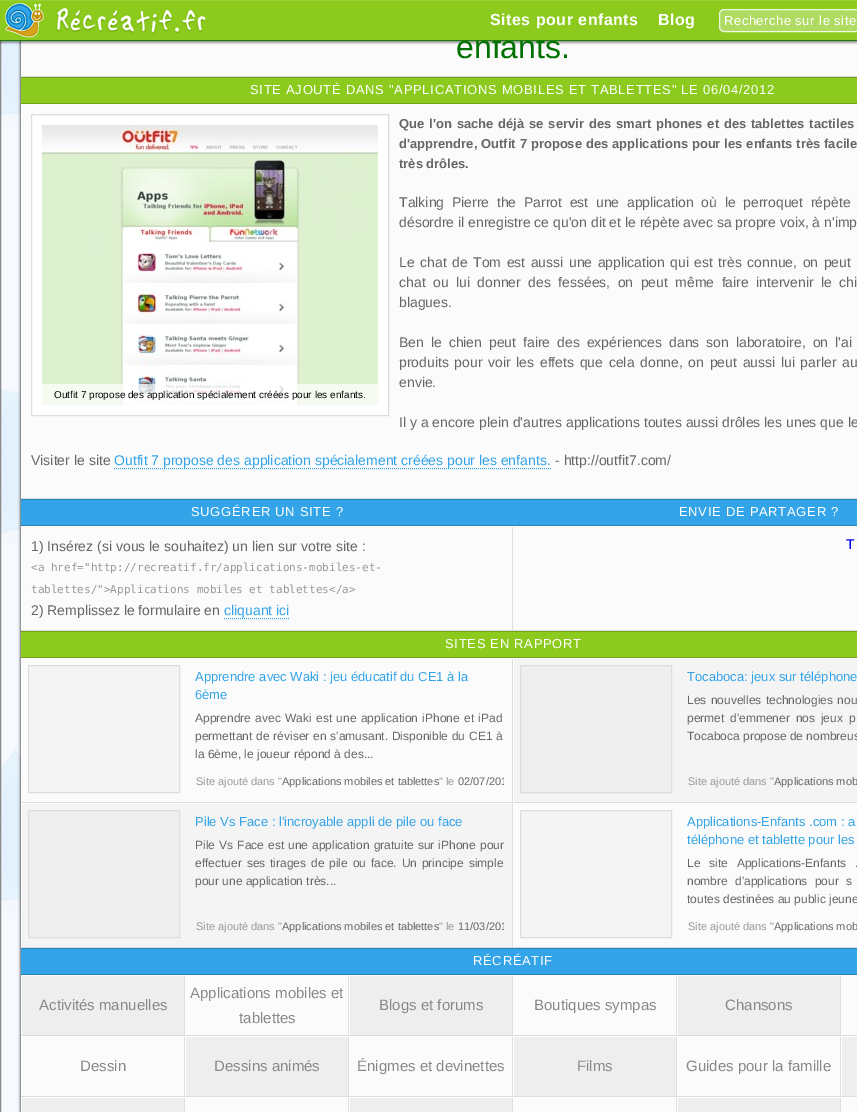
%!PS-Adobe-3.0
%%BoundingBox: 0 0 857 1112
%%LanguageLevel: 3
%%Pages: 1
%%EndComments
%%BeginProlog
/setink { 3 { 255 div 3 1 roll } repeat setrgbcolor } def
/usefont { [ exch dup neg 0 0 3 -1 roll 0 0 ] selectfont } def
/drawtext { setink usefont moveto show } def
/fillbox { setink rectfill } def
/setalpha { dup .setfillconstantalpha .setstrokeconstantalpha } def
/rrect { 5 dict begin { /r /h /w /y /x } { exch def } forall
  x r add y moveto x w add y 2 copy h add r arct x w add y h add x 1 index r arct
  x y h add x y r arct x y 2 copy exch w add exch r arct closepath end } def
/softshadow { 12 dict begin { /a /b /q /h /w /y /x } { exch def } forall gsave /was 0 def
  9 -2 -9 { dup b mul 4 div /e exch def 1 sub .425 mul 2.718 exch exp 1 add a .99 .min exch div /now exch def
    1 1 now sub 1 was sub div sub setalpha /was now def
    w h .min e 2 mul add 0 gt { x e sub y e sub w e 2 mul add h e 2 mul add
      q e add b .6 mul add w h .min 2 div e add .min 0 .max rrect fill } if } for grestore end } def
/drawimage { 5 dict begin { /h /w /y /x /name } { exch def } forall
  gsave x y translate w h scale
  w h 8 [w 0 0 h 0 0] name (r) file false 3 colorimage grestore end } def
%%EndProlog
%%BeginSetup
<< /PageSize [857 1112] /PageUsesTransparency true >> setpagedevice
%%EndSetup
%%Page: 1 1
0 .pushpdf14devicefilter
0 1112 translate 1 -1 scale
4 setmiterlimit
0 0 857 1112 255 255 255 fillbox
(assets/img1.rgb) 1 41 20 1071 drawimage
136 136 136 setink
0.5 -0.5 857 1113 rectstroke
0 0 0 setink
21 -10 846 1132 5 1.5 1 softshadow
21 41 836 35 251 251 251 fillbox
0 0 0 setink
0 2 857 41 0 1 0.4 softshadow
(enfants.) 456 58 /LiberationSans-Regular 32 0 113 0 drawtext
0 1 857 39 140 203 30 fillbox
0 0 857 1 152 208 53 fillbox
0 40 857 1 27 123 11 fillbox
(assets/img2.rgb) 4 2 203 37 drawimage
/LiberationSans-Bold 16 usefont
255 255 255 setink
490 25 moveto 0.5 0 (Sites pour enfants) ashow
658 25 moveto 0.5 0 (Blog) ashow
175 219 98 setink
719 9 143 23 5 rrect fill
0.8 setalpha
255 255 255 setink
719.5 9.5 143 22 4.5 rrect stroke
/LiberationSans-Regular 13 usefont
1 setalpha
724 25 moveto 0.5 0 (Recherche sur le site) ashow
21 76 836 1 221 221 221 fillbox
21 104 836 394 251 251 251 fillbox
21 498 836 1 221 221 221 fillbox
21 78 836 25 140 203 30 fillbox
21 77 836 1 112 162 24 fillbox
21 103 836 1 112 162 24 fillbox
255 255 255 setink
250 94 moveto 0.7 0 (SITE AJOUTÉ DANS "APPLICATIONS MOBILES ET TABLETTES" LE 06/04/2012) ashow
/LiberationSans-Bold 13 usefont
102 102 102 setink
399 128 moveto 1.25 0 32 (Que l'on sache déjà se servir des smart phones et des tablettes tactiles) widthshow
399 148 moveto 0.25 0 32 (d'apprendre, Outfit 7 propose des applications pour les enfants très facile) widthshow
(très drôles.) 399 168 /LiberationSans-Bold 13 102 102 102 drawtext
255 255 255 setink
31.5 114.5 moveto 388.5 114.5 lineto 388.5 415.5 lineto 31.5 415.5 lineto closepath gsave fill grestore
221 221 221 setink
stroke
(assets/img3.rgb) 42 125 336 280 drawimage
0.7 setalpha
42 384 336 21 255 255 255 fillbox
1 setalpha
(Outfit 7 propose des application spécialement créées pour les enfants.) 54 398 /LiberationSans-Regular 10 0 0 0 drawtext
/LiberationSans-Regular 14 usefont
102 102 102 setink
399 207 moveto 3.75 0 32 (Talking Pierre the Parrot est une application où le perroquet répète) widthshow
(désordre il enregistre ce qu'on dit et le répète avec sa propre voix, à n'imp) 399 227 /LiberationSans-Regular 14 102 102 102 drawtext
399 267 moveto 1.6 0 32 (Le chat de Tom est aussi une application qui est très connue, on peut) widthshow
399 287 moveto 3.5 0 32 (chat ou lui donner des fessées, on peut même faire intervenir le chi) widthshow
(blagues.) 399 307 /LiberationSans-Regular 14 102 102 102 drawtext
399 347 moveto 3 0 32 (Ben le chien peut faire des expériences dans son laboratoire, on l'ai) widthshow
399 367 moveto 1.75 0 32 (produits pour voir les effets que cela donne, on peut aussi lui parler au) widthshow
(envie.) 399 387 /LiberationSans-Regular 14 102 102 102 drawtext
(Il y a encore plein d'autres applications toutes aussi drôles les unes que le) 399 427 /LiberationSans-Regular 14 102 102 102 drawtext
(Visiter le site) 31 465 /LiberationSans-Regular 14 102 102 102 drawtext
(Outfit 7 propose des application spécialement créées pour les enfants.) 114 465 /LiberationSans-Regular 14 51 164 231 drawtext
[1 1] 0 setdash
114 468.5 moveto 551 468.5 lineto stroke
(- http://outfit7.com/) 555 465 /LiberationSans-Regular 14 102 102 102 drawtext
22 527 835 103 251 251 251 fillbox
21 630 836 1 221 221 221 fillbox
21 500 836 25 51 164 231 fillbox
21 499 836 1 41 131 185 fillbox
21 525 836 1 41 131 185 fillbox
/LiberationSans-Regular 13 usefont
255 255 255 setink
191 516 moveto 0.7 0 (SUGGÉRER UN SITE ?) ashow
679 516 moveto 0.7 0 (ENVIE DE PARTAGER ?) ashow
21 526 1 104 255 255 255 fillbox
512 526 1 104 221 221 221 fillbox
21 526 492 1 255 255 255 fillbox
(1\) Insérez \(si vous le souhaitez\) un lien sur votre site :) 31 551 /LiberationSans-Regular 14 102 102 102 drawtext
(<a href="http://recreatif.fr/applications-mobiles-et-) 31 571 /DejaVuSansMono-Regular 11 153 153 153 drawtext
(tablettes/">Applications mobiles et tablettes</a>) 31 593 /DejaVuSansMono-Regular 11 153 153 153 drawtext
(2\) Remplissez le formulaire en) 31 615 /LiberationSans-Regular 14 102 102 102 drawtext
(cliquant ici) 224 615 /LiberationSans-Regular 14 51 164 231 drawtext
224 618.5 moveto 289 618.5 lineto stroke
513 526 1 80 255 255 255 fillbox
513 526 344 1 255 255 255 fillbox
(T) 846 549 /LiberationSans-Regular 14 0 0 238 drawtext
22 659 835 288 251 251 251 fillbox
21 947 836 1 221 221 221 fillbox
21 632 836 25 140 203 30 fillbox
21 631 836 1 112 162 24 fillbox
21 657 836 1 112 162 24 fillbox
/LiberationSans-Regular 13 usefont
255 255 255 setink
445 648 moveto 0.7 0 (SITES EN RAPPORT) ashow
21 658 1 144 255 255 255 fillbox
512 658 1 144 221 221 221 fillbox
21 658 492 1 255 255 255 fillbox
21 802 836 1 221 221 221 fillbox
244 244 244 setink
28.5 665.5 moveto 179.5 665.5 lineto 179.5 792.5 lineto 28.5 792.5 lineto closepath gsave fill grestore
221 221 221 setink
[] 0 setdash
stroke
(Apprendre avec Waki : jeu éducatif du CE1 à la) 195 681 /LiberationSans-Regular 13 51 164 231 drawtext
(6ème) 195 699 /LiberationSans-Regular 13 51 164 231 drawtext
/LiberationSans-Regular 12 usefont
102 102 102 setink
195 722 moveto 1 0 32 (Apprendre avec Waki est une application iPhone et iPad) widthshow
195 740 moveto 0.5 0 32 (permettant de réviser en s'amusant. Disponible du CE1 à) widthshow
(la 6ème, le joueur répond à des...) 195 758 /LiberationSans-Regular 12 102 102 102 drawtext
(Site ajouté dans ") 196 785 /LiberationSans-Regular 11 153 153 153 drawtext
(Applications mobiles et tablettes) 282 785 /LiberationSans-Regular 11 102 102 102 drawtext
(" le) 439 785 /LiberationSans-Regular 11 153 153 153 drawtext
gsave
196 770 308 22 rectclip
(02/07/201) 458 785 /LiberationSans-Regular 11 102 102 102 drawtext
grestore
514 659 343 143 244 244 244 fillbox
513 658 1 144 255 255 255 fillbox
513 658 344 1 255 255 255 fillbox
238 238 238 setink
520.5 665.5 moveto 671.5 665.5 lineto 671.5 792.5 lineto 520.5 792.5 lineto closepath gsave fill grestore
221 221 221 setink
stroke
(Tocaboca: jeux sur téléphone) 687 681 /LiberationSans-Regular 13 51 164 231 drawtext
/LiberationSans-Regular 12 usefont
102 102 102 setink
687 704 moveto 1 0 32 (Les nouvelles technologies nou) widthshow
687 722 moveto 2.5 0 32 (permet d'emmener nos jeux p) widthshow
(Tocaboca propose de nombreus) 687 740 /LiberationSans-Regular 12 102 102 102 drawtext
(Site ajouté dans ") 688 785 /LiberationSans-Regular 11 153 153 153 drawtext
(Applications mob) 774 785 /LiberationSans-Regular 11 102 102 102 drawtext
22 804 490 143 244 244 244 fillbox
21 803 1 144 255 255 255 fillbox
512 803 1 144 221 221 221 fillbox
21 803 492 1 255 255 255 fillbox
238 238 238 setink
28.5 810.5 moveto 179.5 810.5 lineto 179.5 937.5 lineto 28.5 937.5 lineto closepath gsave fill grestore
221 221 221 setink
stroke
(Pile Vs Face : l'incroyable appli de pile ou face) 195 826 /LiberationSans-Regular 13 51 164 231 drawtext
/LiberationSans-Regular 12 usefont
102 102 102 setink
195 849 moveto 0.75 0 32 (Pile Vs Face est une application gratuite sur iPhone pour) widthshow
195 867 moveto 1.5 0 32 (effectuer ses tirages de pile ou face. Un principe simple) widthshow
(pour une application très...) 195 885 /LiberationSans-Regular 12 102 102 102 drawtext
(Site ajouté dans ") 196 930 /LiberationSans-Regular 11 153 153 153 drawtext
(Applications mobiles et tablettes) 282 930 /LiberationSans-Regular 11 102 102 102 drawtext
(" le) 439 930 /LiberationSans-Regular 11 153 153 153 drawtext
gsave
196 915 308 22 rectclip
(11/03/201) 458 930 /LiberationSans-Regular 11 102 102 102 drawtext
grestore
513 803 1 144 255 255 255 fillbox
513 803 344 1 255 255 255 fillbox
244 244 244 setink
520.5 810.5 moveto 671.5 810.5 lineto 671.5 937.5 lineto 520.5 937.5 lineto closepath gsave fill grestore
221 221 221 setink
stroke
(Applications-Enfants .com : a) 687 826 /LiberationSans-Regular 13 51 164 231 drawtext
(téléphone et tablette pour les) 687 844 /LiberationSans-Regular 13 51 164 231 drawtext
/LiberationSans-Regular 12 usefont
102 102 102 setink
687 867 moveto 5.5 0 32 (Le site Applications-Enfants .) widthshow
687 885 moveto 4 0 32 (nombre d'applications pour s) widthshow
(toutes destinées au public jeune) 687 903 /LiberationSans-Regular 12 102 102 102 drawtext
(Site ajouté dans ") 688 930 /LiberationSans-Regular 11 153 153 153 drawtext
(Applications mob) 774 930 /LiberationSans-Regular 11 102 102 102 drawtext
22 976 835 136 251 251 251 fillbox
21 949 836 25 51 164 231 fillbox
21 948 836 1 41 131 185 fillbox
21 974 836 1 41 131 185 fillbox
/LiberationSans-Regular 13 usefont
255 255 255 setink
473 965 moveto 0.7 0 (RÉCRÉATIF) ashow
22 976 162 59 238 238 238 fillbox
21 975 1 60 255 255 255 fillbox
184 975 1 60 221 221 221 fillbox
21 975 164 1 255 255 255 fillbox
21 1035 836 1 221 221 221 fillbox
(Activités manuelles) 39 1010 /LiberationSans-Regular 15 136 136 136 drawtext
185 975 1 60 255 255 255 fillbox
348 975 1 60 221 221 221 fillbox
185 975 164 1 255 255 255 fillbox
(Applications mobiles et) 190 998 /LiberationSans-Regular 15 136 136 136 drawtext
(tablettes) 239 1023 /LiberationSans-Regular 15 136 136 136 drawtext
350 976 162 59 238 238 238 fillbox
349 975 1 60 255 255 255 fillbox
512 975 1 60 221 221 221 fillbox
349 975 164 1 255 255 255 fillbox
(Blogs et forums) 379 1010 /LiberationSans-Regular 15 136 136 136 drawtext
513 975 1 60 255 255 255 fillbox
676 975 1 60 221 221 221 fillbox
513 975 164 1 255 255 255 fillbox
(Boutiques sympas) 534 1010 /LiberationSans-Regular 15 136 136 136 drawtext
678 976 162 59 238 238 238 fillbox
677 975 1 60 255 255 255 fillbox
840 975 1 60 221 221 221 fillbox
677 975 164 1 255 255 255 fillbox
(Chansons) 725 1010 /LiberationSans-Regular 15 136 136 136 drawtext
841 975 1 60 255 255 255 fillbox
841 975 16 1 255 255 255 fillbox
21 1036 1 60 255 255 255 fillbox
184 1036 1 60 221 221 221 fillbox
21 1036 164 1 255 255 255 fillbox
21 1096 836 1 221 221 221 fillbox
(Dessin) 80 1071 /LiberationSans-Regular 15 136 136 136 drawtext
186 1037 162 59 238 238 238 fillbox
185 1036 1 60 255 255 255 fillbox
348 1036 1 60 221 221 221 fillbox
185 1036 164 1 255 255 255 fillbox
(Dessins animés) 214 1071 /LiberationSans-Regular 15 136 136 136 drawtext
349 1036 1 60 255 255 255 fillbox
512 1036 1 60 221 221 221 fillbox
349 1036 164 1 255 255 255 fillbox
(Énigmes et devinettes) 357 1071 /LiberationSans-Regular 15 136 136 136 drawtext
514 1037 162 59 238 238 238 fillbox
513 1036 1 60 255 255 255 fillbox
676 1036 1 60 221 221 221 fillbox
513 1036 164 1 255 255 255 fillbox
(Films) 577 1071 /LiberationSans-Regular 15 136 136 136 drawtext
677 1036 1 60 255 255 255 fillbox
840 1036 1 60 221 221 221 fillbox
677 1036 164 1 255 255 255 fillbox
(Guides pour la famille) 686 1071 /LiberationSans-Regular 15 136 136 136 drawtext
842 1037 15 59 238 238 238 fillbox
841 1036 1 60 255 255 255 fillbox
841 1036 16 1 255 255 255 fillbox
22 1098 162 14 238 238 238 fillbox
21 1097 1 15 255 255 255 fillbox
184 1097 1 15 221 221 221 fillbox
21 1097 164 1 255 255 255 fillbox
185 1097 1 15 255 255 255 fillbox
348 1097 1 15 221 221 221 fillbox
185 1097 164 1 255 255 255 fillbox
350 1098 162 14 238 238 238 fillbox
349 1097 1 15 255 255 255 fillbox
512 1097 1 15 221 221 221 fillbox
349 1097 164 1 255 255 255 fillbox
513 1097 1 15 255 255 255 fillbox
676 1097 1 15 221 221 221 fillbox
513 1097 164 1 255 255 255 fillbox
678 1098 162 14 238 238 238 fillbox
677 1097 1 15 255 255 255 fillbox
840 1097 1 15 221 221 221 fillbox
677 1097 164 1 255 255 255 fillbox
841 1097 1 15 255 255 255 fillbox
841 1097 16 1 255 255 255 fillbox
.poppdf14devicefilter showpage
%%EOF
